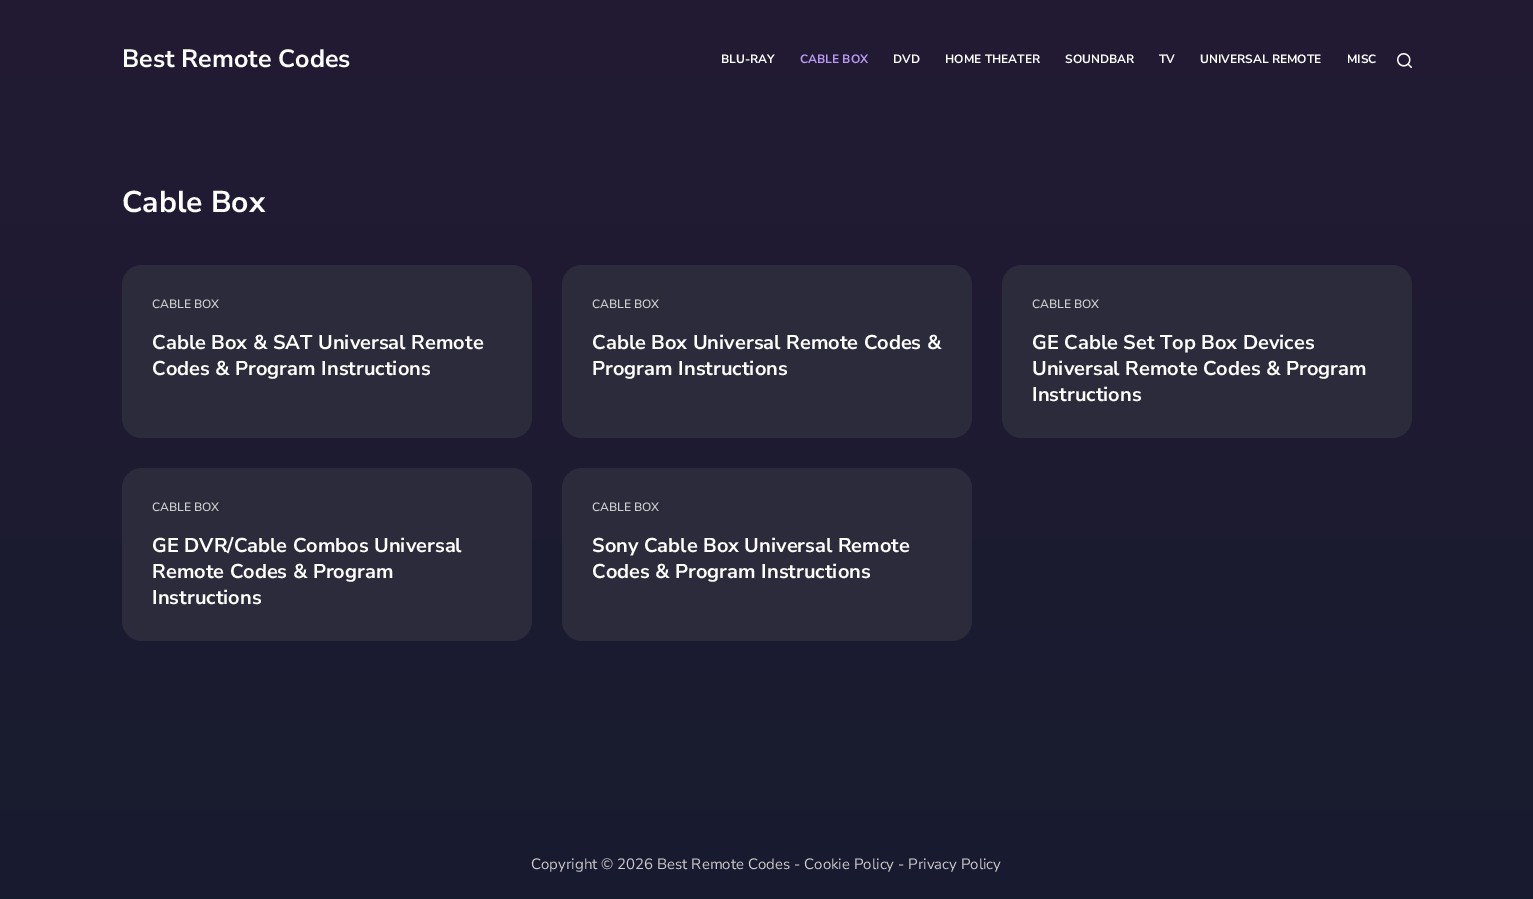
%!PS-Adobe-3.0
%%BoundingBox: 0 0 1533 899
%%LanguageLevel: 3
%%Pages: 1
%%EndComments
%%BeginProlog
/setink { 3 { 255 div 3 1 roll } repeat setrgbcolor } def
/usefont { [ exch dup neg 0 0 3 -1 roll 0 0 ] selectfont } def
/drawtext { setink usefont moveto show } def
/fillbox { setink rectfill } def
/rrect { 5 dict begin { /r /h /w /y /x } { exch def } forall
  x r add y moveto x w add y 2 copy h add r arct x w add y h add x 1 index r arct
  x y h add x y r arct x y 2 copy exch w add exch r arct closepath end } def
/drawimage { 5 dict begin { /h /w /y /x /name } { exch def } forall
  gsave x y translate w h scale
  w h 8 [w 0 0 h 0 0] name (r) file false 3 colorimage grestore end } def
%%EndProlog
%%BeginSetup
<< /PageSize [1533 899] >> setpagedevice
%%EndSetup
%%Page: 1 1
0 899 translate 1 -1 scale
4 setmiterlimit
0 0 1533 899 255 255 255 fillbox
gsave 0 0 moveto 1533 0 lineto 1533 899 lineto 0 899 lineto closepath clip newpath
<< /ShadingType 2 /ColorSpace /DeviceRGB /Coords [767 0 767 899] /Extend [true true] /Function << /FunctionType 2 /Domain [0 1] /C0 [0.137 0.102 0.204] /C1 [0.094 0.11 0.184] /N 1 >> >> shfill grestore
(Best Remote Codes) 122 67 /NunitoSans-Bold 25 255 255 255 drawtext
(BLU-RAY) 721 63 /NunitoSans-Bold 12 255 255 255 drawtext
(CABLE BOX) 800 63 /NunitoSans-Bold 12 184 152 240 drawtext
(DVD) 893 63 /NunitoSans-Bold 12 255 255 255 drawtext
(HOME THEATER) 945 63 /NunitoSans-Bold 12 255 255 255 drawtext
(SOUNDBAR) 1065 63 /NunitoSans-Bold 12 255 255 255 drawtext
(TV) 1159 63 /NunitoSans-Bold 12 255 255 255 drawtext
(UNIVERSAL REMOTE) 1200 63 /NunitoSans-Bold 12 255 255 255 drawtext
(MISC) 1347 63 /NunitoSans-Bold 12 255 255 255 drawtext
(assets/img1.rgb) 1397 53 15 15 drawimage
(Cable Box) 122 212 /NunitoSans-Bold 30 255 255 255 drawtext
44 43 60 setink
122 265 410 173 20 rrect fill
(CABLE BOX) 152 308 /NunitoSans-SemiBold 12 204 204 204 drawtext
(Cable Box & SAT Universal Remote) 152 349 /NunitoSans-Bold 20 255 255 255 drawtext
(Codes & Program Instructions) 152 375 /NunitoSans-Bold 20 255 255 255 drawtext
44 43 60 setink
562 265 410 173 20 rrect fill
(CABLE BOX) 592 308 /NunitoSans-SemiBold 12 204 204 204 drawtext
(Cable Box Universal Remote Codes &) 592 349 /NunitoSans-Bold 20 255 255 255 drawtext
(Program Instructions) 592 375 /NunitoSans-Bold 20 255 255 255 drawtext
44 43 60 setink
1002 265 410 173 20 rrect fill
(CABLE BOX) 1032 308 /NunitoSans-SemiBold 12 204 204 204 drawtext
(GE Cable Set Top Box Devices) 1032 349 /NunitoSans-Bold 20 255 255 255 drawtext
(Universal Remote Codes & Program) 1032 375 /NunitoSans-Bold 20 255 255 255 drawtext
(Instructions) 1032 401 /NunitoSans-Bold 20 255 255 255 drawtext
44 43 60 setink
122 468 410 173 20 rrect fill
(CABLE BOX) 152 511 /NunitoSans-SemiBold 12 204 204 204 drawtext
(GE DVR/Cable Combos Universal) 152 552 /NunitoSans-Bold 20 255 255 255 drawtext
(Remote Codes & Program) 152 578 /NunitoSans-Bold 20 255 255 255 drawtext
(Instructions) 152 604 /NunitoSans-Bold 20 255 255 255 drawtext
44 43 60 setink
562 468 410 173 20 rrect fill
(CABLE BOX) 592 511 /NunitoSans-SemiBold 12 204 204 204 drawtext
(Sony Cable Box Universal Remote) 592 552 /NunitoSans-Bold 20 255 255 255 drawtext
(Codes & Program Instructions) 592 578 /NunitoSans-Bold 20 255 255 255 drawtext
(Copyright © 2026 Best Remote Codes - Cookie Policy - Privacy Policy) 531 869 /NunitoSans-Regular 15 204 204 204 drawtext
showpage
%%EOF
